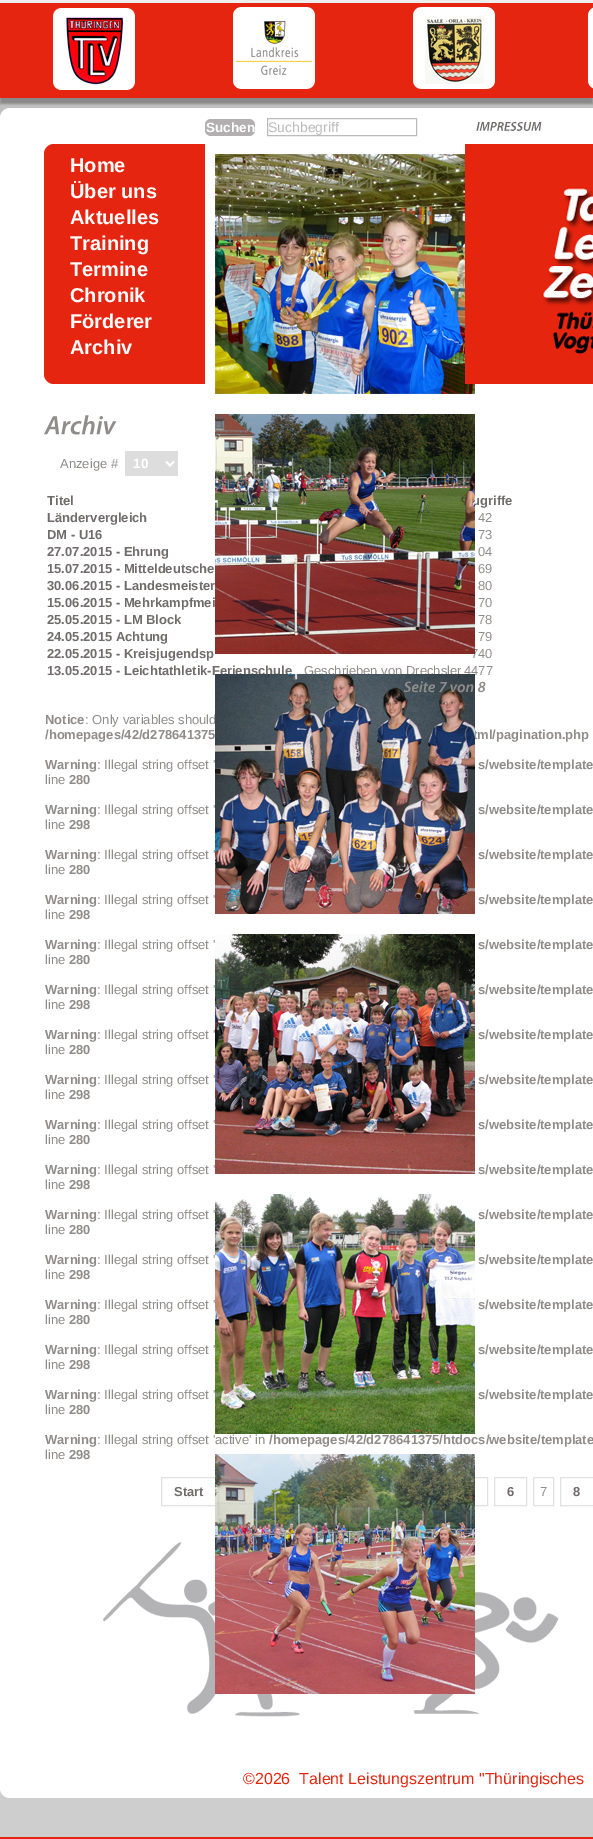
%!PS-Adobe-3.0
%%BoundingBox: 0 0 593 1839
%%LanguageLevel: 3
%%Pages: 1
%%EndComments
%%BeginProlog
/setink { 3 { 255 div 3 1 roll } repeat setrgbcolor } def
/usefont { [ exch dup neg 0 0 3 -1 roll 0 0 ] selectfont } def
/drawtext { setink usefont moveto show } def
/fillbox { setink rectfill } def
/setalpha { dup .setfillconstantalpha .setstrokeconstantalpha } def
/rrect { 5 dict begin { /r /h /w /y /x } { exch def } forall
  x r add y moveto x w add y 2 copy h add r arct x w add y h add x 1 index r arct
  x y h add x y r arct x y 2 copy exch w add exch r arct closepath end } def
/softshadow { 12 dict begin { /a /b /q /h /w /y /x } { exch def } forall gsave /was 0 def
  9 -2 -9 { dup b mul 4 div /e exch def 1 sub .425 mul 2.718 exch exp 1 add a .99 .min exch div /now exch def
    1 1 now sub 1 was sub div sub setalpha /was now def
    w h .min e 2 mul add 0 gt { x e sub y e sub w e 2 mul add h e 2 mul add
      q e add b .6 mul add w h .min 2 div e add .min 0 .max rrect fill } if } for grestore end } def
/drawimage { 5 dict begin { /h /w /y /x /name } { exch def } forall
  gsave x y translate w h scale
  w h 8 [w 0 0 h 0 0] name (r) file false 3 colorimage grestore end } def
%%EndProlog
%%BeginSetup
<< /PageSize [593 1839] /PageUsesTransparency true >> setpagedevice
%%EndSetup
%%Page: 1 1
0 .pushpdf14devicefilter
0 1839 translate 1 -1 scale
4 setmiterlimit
0 0 593 1839 238 238 238 fillbox
0 98 593 20 192 192 192 fillbox
136 136 136 setink
0 9 593 95 0 1 1 softshadow
0 3 593 95 229 37 15 fillbox
(assets/img1.rgb) 53 7 540 83 drawimage
255 255 255 setink
0 108 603 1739 10 rrect fill
179 174 175 setink
205 119 50 17 6 rrect fill
(Suchen) 206 132 /LiberationSans-Bold 13.5 255 255 255 drawtext
187 187 187 setink
267.5 118.5 149 17 rectstroke
(Suchbegriff) 268 132 /LiberationSans-Regular 14 187 187 187 drawtext
(assets/img2.rgb) 476 122 66 9 drawimage
229 37 15 setink
54 144 moveto 205 144 lineto 205 384 lineto 54 384 lineto 48.5 384 44 379.5 44 374 curveto 44 154 lineto 44 148.5 48.5 144 54 144 curveto closepath fill
(Home) 70 172 /LiberationSans-Bold 20 255 255 255 drawtext
(Über uns) 70 198 /LiberationSans-Bold 20 255 255 255 drawtext
(Aktuelles) 70 224 /LiberationSans-Bold 20 255 255 255 drawtext
(Training) 70 250 /LiberationSans-Bold 20 255 255 255 drawtext
(Termine) 70 276 /LiberationSans-Bold 20 255 255 255 drawtext
(Chronik) 70 302 /LiberationSans-Bold 20 255 255 255 drawtext
(Förderer) 70 328 /LiberationSans-Bold 20 255 255 255 drawtext
(Archiv) 70 354 /LiberationSans-Bold 20 255 255 255 drawtext
(assets/img3.rgb) 215 154 260 240 drawimage
(ugriffe) 472 505 /LiberationSans-Bold 13 112 108 107 drawtext
(30.06.2015 - Landesmeister) 47 590 /LiberationSans-Bold 13 112 108 107 drawtext
(740) 471 658 /LiberationSans-Regular 13 144 140 138 drawtext
(assets/img4.rgb) 215 414 260 240 drawimage
(13.05.2015 - Leichtathletik-Ferienschule) 47 675 /LiberationSans-Bold 13 112 108 107 drawtext
(Geschrieben von Drechsler) 304 675 /LiberationSans-Regular 13 144 140 138 drawtext
(4477) 464 675 /LiberationSans-Regular 13 144 140 138 drawtext
(: Only variables should) 85 724 /LiberationSans-Regular 13 144 140 138 drawtext
(/homepages/42/d278641375) 45 739 /LiberationSans-Bold 13 144 140 138 drawtext
(tml/pagination.php) 473 739 /LiberationSans-Bold 13 144 140 138 drawtext
(assets/img5.rgb) 215 674 260 240 drawimage
(assets/img6.rgb) 215 934 260 240 drawimage
(assets/img7.rgb) 215 1194 260 240 drawimage
225 225 225 setink
161.5 1477.5 54 28 rectstroke
455.5 1477.5 32 28 rectstroke
(assets/img15.rgb) 103 1542 456 175 drawimage
(assets/img8.rgb) 215 1454 260 240 drawimage
(assets/img9.rgb) 465 144 128 240 drawimage
(assets/img10.rgb) 44 415 73 20 drawimage
(Anzeige #) 60 468 /LiberationSans-Regular 13 144 140 138 drawtext
125 451 53 25 221 221 221 fillbox
255 255 255 setink
2 setlinewidth
166 461.5 moveto 170 465.5 lineto 174 461.5 lineto stroke
(10) 133 468 /LiberationSans-Bold 13.5 255 255 255 drawtext
(Titel) 47 505 /LiberationSans-Bold 13 112 108 107 drawtext
(Ländervergleich) 47 522 /LiberationSans-Bold 13 112 108 107 drawtext
(42) 478 522 /LiberationSans-Regular 13 144 140 138 drawtext
(DM - U16) 47 539 /LiberationSans-Bold 13 112 108 107 drawtext
(73) 478 539 /LiberationSans-Regular 13 144 140 138 drawtext
(27.07.2015 - Ehrung) 47 556 /LiberationSans-Bold 13 112 108 107 drawtext
(04) 478 556 /LiberationSans-Regular 13 144 140 138 drawtext
(15.07.2015 - Mitteldeutsche) 47 573 /LiberationSans-Bold 13 112 108 107 drawtext
(69) 478 573 /LiberationSans-Regular 13 144 140 138 drawtext
(80) 478 590 /LiberationSans-Regular 13 144 140 138 drawtext
(15.06.2015 - Mehrkampfmei) 47 607 /LiberationSans-Bold 13 112 108 107 drawtext
(70) 478 607 /LiberationSans-Regular 13 144 140 138 drawtext
(25.05.2015 - LM Block) 47 624 /LiberationSans-Bold 13 112 108 107 drawtext
(78) 478 624 /LiberationSans-Regular 13 144 140 138 drawtext
(24.05.2015 Achtung) 47 641 /LiberationSans-Bold 13 112 108 107 drawtext
(79) 478 641 /LiberationSans-Regular 13 144 140 138 drawtext
(22.05.2015 - Kreisjugendsp) 47 658 /LiberationSans-Bold 13 112 108 107 drawtext
(assets/img11.rgb) 403 681 32 12 drawimage
(assets/img12.rgb) 439 682 8 10 drawimage
(assets/img13.rgb) 450 684 24 9 drawimage
(assets/img14.rgb) 477 681 9 12 drawimage
(Notice) 45 724 /LiberationSans-Bold 13 144 140 138 drawtext
(Warning) 45 769 /LiberationSans-Bold 13 144 140 138 drawtext
(: Illegal string offset ') 97 769 /LiberationSans-Regular 13 144 140 138 drawtext
(s/website/template) 478 769 /LiberationSans-Bold 13 144 140 138 drawtext
(line) 45 784 /LiberationSans-Regular 13 144 140 138 drawtext
(280) 69 784 /LiberationSans-Bold 13 144 140 138 drawtext
(Warning) 45 814 /LiberationSans-Bold 13 144 140 138 drawtext
(: Illegal string offset ') 97 814 /LiberationSans-Regular 13 144 140 138 drawtext
(s/website/template) 478 814 /LiberationSans-Bold 13 144 140 138 drawtext
(line) 45 829 /LiberationSans-Regular 13 144 140 138 drawtext
(298) 69 829 /LiberationSans-Bold 13 144 140 138 drawtext
(Warning) 45 859 /LiberationSans-Bold 13 144 140 138 drawtext
(: Illegal string offset ') 97 859 /LiberationSans-Regular 13 144 140 138 drawtext
(s/website/template) 478 859 /LiberationSans-Bold 13 144 140 138 drawtext
(line) 45 874 /LiberationSans-Regular 13 144 140 138 drawtext
(280) 69 874 /LiberationSans-Bold 13 144 140 138 drawtext
(Warning) 45 904 /LiberationSans-Bold 13 144 140 138 drawtext
(: Illegal string offset ') 97 904 /LiberationSans-Regular 13 144 140 138 drawtext
(s/website/template) 478 904 /LiberationSans-Bold 13 144 140 138 drawtext
(line) 45 919 /LiberationSans-Regular 13 144 140 138 drawtext
(298) 69 919 /LiberationSans-Bold 13 144 140 138 drawtext
(Warning) 45 949 /LiberationSans-Bold 13 144 140 138 drawtext
(: Illegal string offset ') 97 949 /LiberationSans-Regular 13 144 140 138 drawtext
(s/website/template) 478 949 /LiberationSans-Bold 13 144 140 138 drawtext
(line) 45 964 /LiberationSans-Regular 13 144 140 138 drawtext
(280) 69 964 /LiberationSans-Bold 13 144 140 138 drawtext
(Warning) 45 994 /LiberationSans-Bold 13 144 140 138 drawtext
(: Illegal string offset ') 97 994 /LiberationSans-Regular 13 144 140 138 drawtext
(s/website/template) 478 994 /LiberationSans-Bold 13 144 140 138 drawtext
(line) 45 1009 /LiberationSans-Regular 13 144 140 138 drawtext
(298) 69 1009 /LiberationSans-Bold 13 144 140 138 drawtext
(Warning) 45 1039 /LiberationSans-Bold 13 144 140 138 drawtext
(: Illegal string offset ') 97 1039 /LiberationSans-Regular 13 144 140 138 drawtext
(s/website/template) 478 1039 /LiberationSans-Bold 13 144 140 138 drawtext
(line) 45 1054 /LiberationSans-Regular 13 144 140 138 drawtext
(280) 69 1054 /LiberationSans-Bold 13 144 140 138 drawtext
(Warning) 45 1084 /LiberationSans-Bold 13 144 140 138 drawtext
(: Illegal string offset ') 97 1084 /LiberationSans-Regular 13 144 140 138 drawtext
(s/website/template) 478 1084 /LiberationSans-Bold 13 144 140 138 drawtext
(line) 45 1099 /LiberationSans-Regular 13 144 140 138 drawtext
(298) 69 1099 /LiberationSans-Bold 13 144 140 138 drawtext
(Warning) 45 1129 /LiberationSans-Bold 13 144 140 138 drawtext
(: Illegal string offset ') 97 1129 /LiberationSans-Regular 13 144 140 138 drawtext
(s/website/template) 478 1129 /LiberationSans-Bold 13 144 140 138 drawtext
(line) 45 1144 /LiberationSans-Regular 13 144 140 138 drawtext
(280) 69 1144 /LiberationSans-Bold 13 144 140 138 drawtext
(Warning) 45 1174 /LiberationSans-Bold 13 144 140 138 drawtext
(: Illegal string offset ') 97 1174 /LiberationSans-Regular 13 144 140 138 drawtext
(s/website/template) 478 1174 /LiberationSans-Bold 13 144 140 138 drawtext
(line) 45 1189 /LiberationSans-Regular 13 144 140 138 drawtext
(298) 69 1189 /LiberationSans-Bold 13 144 140 138 drawtext
(Warning) 45 1219 /LiberationSans-Bold 13 144 140 138 drawtext
(: Illegal string offset ') 97 1219 /LiberationSans-Regular 13 144 140 138 drawtext
(s/website/template) 478 1219 /LiberationSans-Bold 13 144 140 138 drawtext
(line) 45 1234 /LiberationSans-Regular 13 144 140 138 drawtext
(280) 69 1234 /LiberationSans-Bold 13 144 140 138 drawtext
(Warning) 45 1264 /LiberationSans-Bold 13 144 140 138 drawtext
(: Illegal string offset ') 97 1264 /LiberationSans-Regular 13 144 140 138 drawtext
(s/website/template) 478 1264 /LiberationSans-Bold 13 144 140 138 drawtext
(line) 45 1279 /LiberationSans-Regular 13 144 140 138 drawtext
(298) 69 1279 /LiberationSans-Bold 13 144 140 138 drawtext
(Warning) 45 1309 /LiberationSans-Bold 13 144 140 138 drawtext
(: Illegal string offset ') 97 1309 /LiberationSans-Regular 13 144 140 138 drawtext
(s/website/template) 478 1309 /LiberationSans-Bold 13 144 140 138 drawtext
(line) 45 1324 /LiberationSans-Regular 13 144 140 138 drawtext
(280) 69 1324 /LiberationSans-Bold 13 144 140 138 drawtext
(Warning) 45 1354 /LiberationSans-Bold 13 144 140 138 drawtext
(: Illegal string offset ') 97 1354 /LiberationSans-Regular 13 144 140 138 drawtext
(s/website/template) 478 1354 /LiberationSans-Bold 13 144 140 138 drawtext
(line) 45 1369 /LiberationSans-Regular 13 144 140 138 drawtext
(298) 69 1369 /LiberationSans-Bold 13 144 140 138 drawtext
(Warning) 45 1399 /LiberationSans-Bold 13 144 140 138 drawtext
(: Illegal string offset ') 97 1399 /LiberationSans-Regular 13 144 140 138 drawtext
(s/website/template) 478 1399 /LiberationSans-Bold 13 144 140 138 drawtext
(line) 45 1414 /LiberationSans-Regular 13 144 140 138 drawtext
(280) 69 1414 /LiberationSans-Bold 13 144 140 138 drawtext
(Warning) 45 1444 /LiberationSans-Bold 13 144 140 138 drawtext
(: Illegal string offset 'active' in) 97 1444 /LiberationSans-Regular 13 144 140 138 drawtext
(/homepages/42/d278641375/htdocs/website/template) 269 1444 /LiberationSans-Bold 13 144 140 138 drawtext
(line) 45 1459 /LiberationSans-Regular 13 144 140 138 drawtext
(298) 69 1459 /LiberationSans-Bold 13 144 140 138 drawtext
(Start) 174 1496 /LiberationSans-Bold 13 112 108 107 drawtext
225 225 225 setink
1 setlinewidth
494.5 1477.5 32 28 rectstroke
(6) 507 1496 /LiberationSans-Bold 13 112 108 107 drawtext
225 225 225 setink
533.5 1477.5 20 28 rectstroke
(7) 540 1496 /LiberationSans-Regular 13 144 140 138 drawtext
225 225 225 setink
560.5 1477.5 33 28 rectstroke
(8) 573 1496 /LiberationSans-Bold 13 112 108 107 drawtext
0 1837 593 2 229 37 15 fillbox
0 1788 593 49 205 206 205 fillbox
255 255 255 setink
0 1742 moveto 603 1742 lineto 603 1788 lineto 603 1793.5 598.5 1798 593 1798 curveto 10 1798 lineto 4.5 1798 0 1793.5 0 1788 curveto closepath fill
(©2026  Talent Leistungszentrum "Thüringisches) 243 1784 /LiberationSans-Regular 16 229 37 15 drawtext
.poppdf14devicefilter showpage
%%EOF
